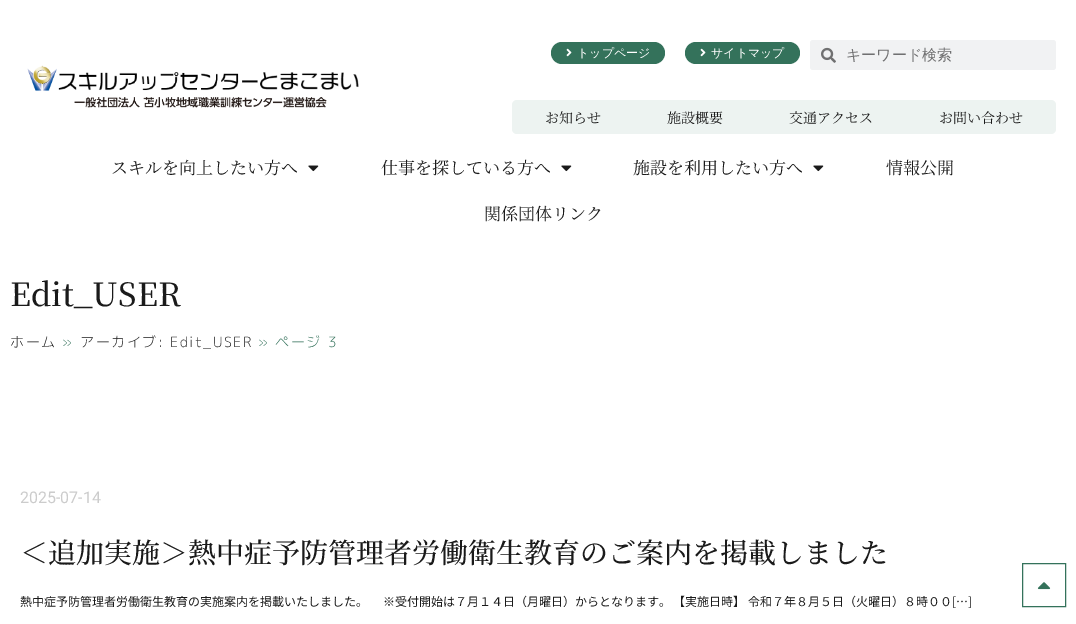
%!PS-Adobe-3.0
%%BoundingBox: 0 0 1076 624
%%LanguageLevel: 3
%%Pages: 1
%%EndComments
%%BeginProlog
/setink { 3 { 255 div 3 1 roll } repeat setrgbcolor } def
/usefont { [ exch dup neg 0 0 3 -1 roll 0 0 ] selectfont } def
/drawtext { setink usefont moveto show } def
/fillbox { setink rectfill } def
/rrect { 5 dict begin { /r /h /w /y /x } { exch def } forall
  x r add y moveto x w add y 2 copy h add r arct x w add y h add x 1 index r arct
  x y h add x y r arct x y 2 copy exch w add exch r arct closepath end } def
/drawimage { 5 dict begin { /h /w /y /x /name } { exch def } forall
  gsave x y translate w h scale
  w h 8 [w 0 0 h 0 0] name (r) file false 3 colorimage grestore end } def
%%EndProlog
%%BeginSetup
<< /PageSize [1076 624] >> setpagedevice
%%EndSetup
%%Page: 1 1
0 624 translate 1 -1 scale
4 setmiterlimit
0 0 1076 624 255 255 255 fillbox
(assets/img1.rgb) 27 65 332 43 drawimage
52 114 91 setink
551 42 114 22 11 rrect fill
(assets/img2.rgb) 566 48 6 9 drawimage
(トップページ) 577 57 /WenQuanYiZenHei-Medium 12 255 255 255 drawtext
52 114 91 setink
685 42 115 22 11 rrect fill
(assets/img2.rgb) 700 48 6 9 drawimage
(サイトマップ) 711 57 /WenQuanYiZenHei-Medium 12 255 255 255 drawtext
241 242 243 setink
810 40 246 30 3 rrect fill
(assets/img3.rgb) 821 47 15 16 drawimage
(キーワード検索) 846 60 /WenQuanYiZenHei-Medium 15 112 112 113 drawtext
237 243 241 setink
512 100 544 34 5 rrect fill
(お知らせ) 545 123 /NotoSerifJP-Regular 14 26 26 26 drawtext
(施設概要) 667 123 /NotoSerifJP-Regular 14 26 26 26 drawtext
(交通アクセス) 789 123 /NotoSerifJP-Regular 14 26 26 26 drawtext
(お問い合わせ) 939 123 /NotoSerifJP-Regular 14 26 26 26 drawtext
(スキルを向上したい方へ) 111 174 /NotoSerifJP-Regular 17 26 26 26 drawtext
(assets/img4.rgb) 308 165 11 7 drawimage
(仕事を探している方へ) 381 174 /NotoSerifJP-Regular 17 26 26 26 drawtext
(assets/img4.rgb) 561 165 11 7 drawimage
(施設を利用したい方へ) 633 174 /NotoSerifJP-Regular 17 26 26 26 drawtext
(assets/img4.rgb) 813 165 11 7 drawimage
(情報公開) 886 174 /NotoSerifJP-Regular 17 26 26 26 drawtext
(関係団体リンク) 484 220 /NotoSerifJP-Regular 17 26 26 26 drawtext
(Edit_USER) 10 306 /NotoSerifJP-Medium 32 26 26 26 drawtext
/MPLUS1p-Light 14 usefont
10 347 moveto 1.6 0 (ホーム) ashow
52 114 91 setink
62 347 moveto 1.6 0 (») ashow
26 26 26 setink
80 347 moveto 1.6 0 (アーカイブ: Edit_USER) ashow
52 114 91 setink
258 347 moveto 1.6 0 (» ページ 3) ashow
(2025-07-14) 20 503 /Roboto-Regular 16 204 204 204 drawtext
(＜追加実施＞熱中症予防管理者労働衛生教育のご案内を掲載しました) 20 563 /NotoSerifJP-Medium 28 26 26 26 drawtext
(熱中症予防管理者労働衛生教育の実施案内を掲載いたしました。 　※受付開始は７月１４日（月曜日）からとなります。 【実施日時】 令和７年８月５日（火曜日）８時００[…]) 20 606 /NotoSansJP-Regular 12 26 26 26 drawtext
52 114 91 setink
1022.5 563.5 43 43 rectstroke
(assets/img5.rgb) 1037 582 14 8 drawimage
showpage
%%EOF
